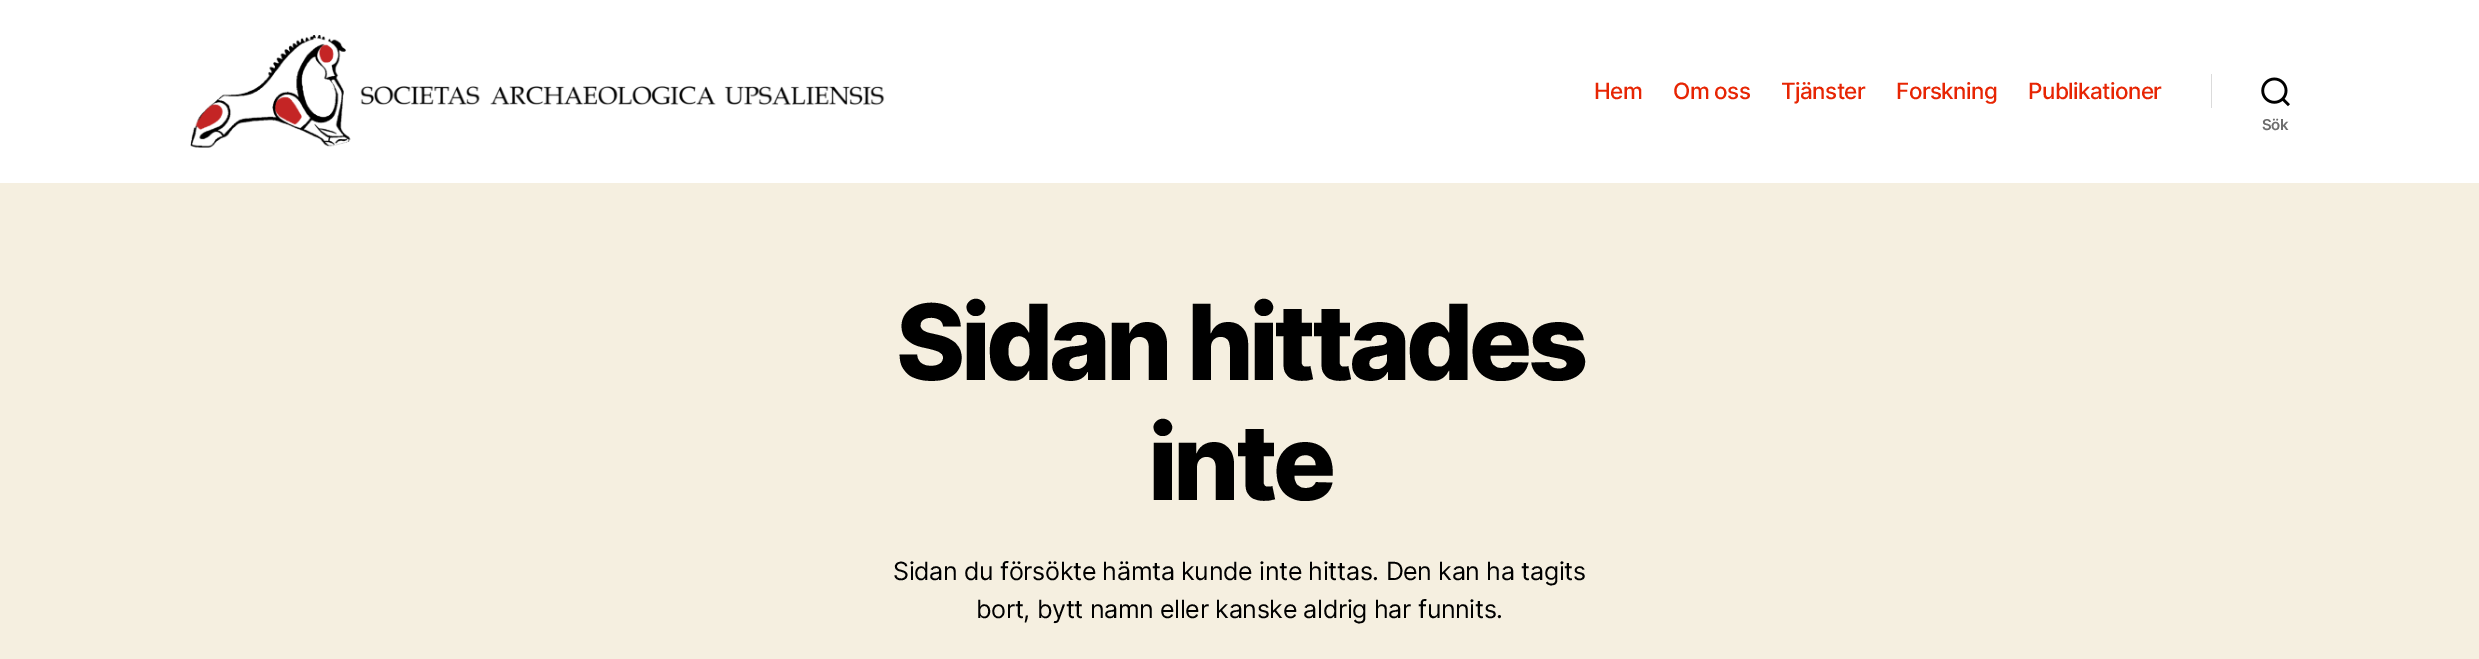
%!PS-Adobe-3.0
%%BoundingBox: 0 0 2479 659
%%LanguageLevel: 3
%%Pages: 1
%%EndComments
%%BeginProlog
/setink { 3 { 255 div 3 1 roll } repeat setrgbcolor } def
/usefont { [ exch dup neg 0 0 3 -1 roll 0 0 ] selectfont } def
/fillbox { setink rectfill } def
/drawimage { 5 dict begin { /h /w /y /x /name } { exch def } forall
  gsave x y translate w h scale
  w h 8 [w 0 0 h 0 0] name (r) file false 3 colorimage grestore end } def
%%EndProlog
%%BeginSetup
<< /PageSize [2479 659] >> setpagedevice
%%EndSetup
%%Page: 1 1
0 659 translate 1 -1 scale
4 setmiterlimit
0 0 2479 659 245 239 224 fillbox
0 0 2479 183 255 255 255 fillbox
(assets/img1.rgb) 190 35 695 113 drawimage
/Inter-Medium 22.5 usefont
231 37 3 setink
1594 99 moveto -0.6 0 (Hem) ashow
1673 99 moveto -0.6 0 (Om oss) ashow
1781 99 moveto -0.6 0 (Tjänster) ashow
1896 99 moveto -0.6 0 (Forskning) ashow
2028 99 moveto -0.6 0 (Publikationer) ashow
2211 74 1 34 219 219 219 fillbox
(assets/img2.rgb) 2261 77 29 30 drawimage
/Inter-SemiBold 15 usefont
109 109 109 setink
2262 130 moveto -0.35 0 (Sök) ashow
/Inter-ExtraBold 105 usefont
0 0 0 setink
896 380 moveto -4.4 0 (Sidan hittades) ashow
1148 500 moveto -4.4 0 (inte) ashow
/Inter-Regular 25 usefont
893 580 moveto -0.35 0 (Sidan du försökte hämta kunde inte hittas. Den kan ha tagits) ashow
976 618 moveto -0.35 0 (bort, bytt namn eller kanske aldrig har funnits.) ashow
showpage
%%EOF
